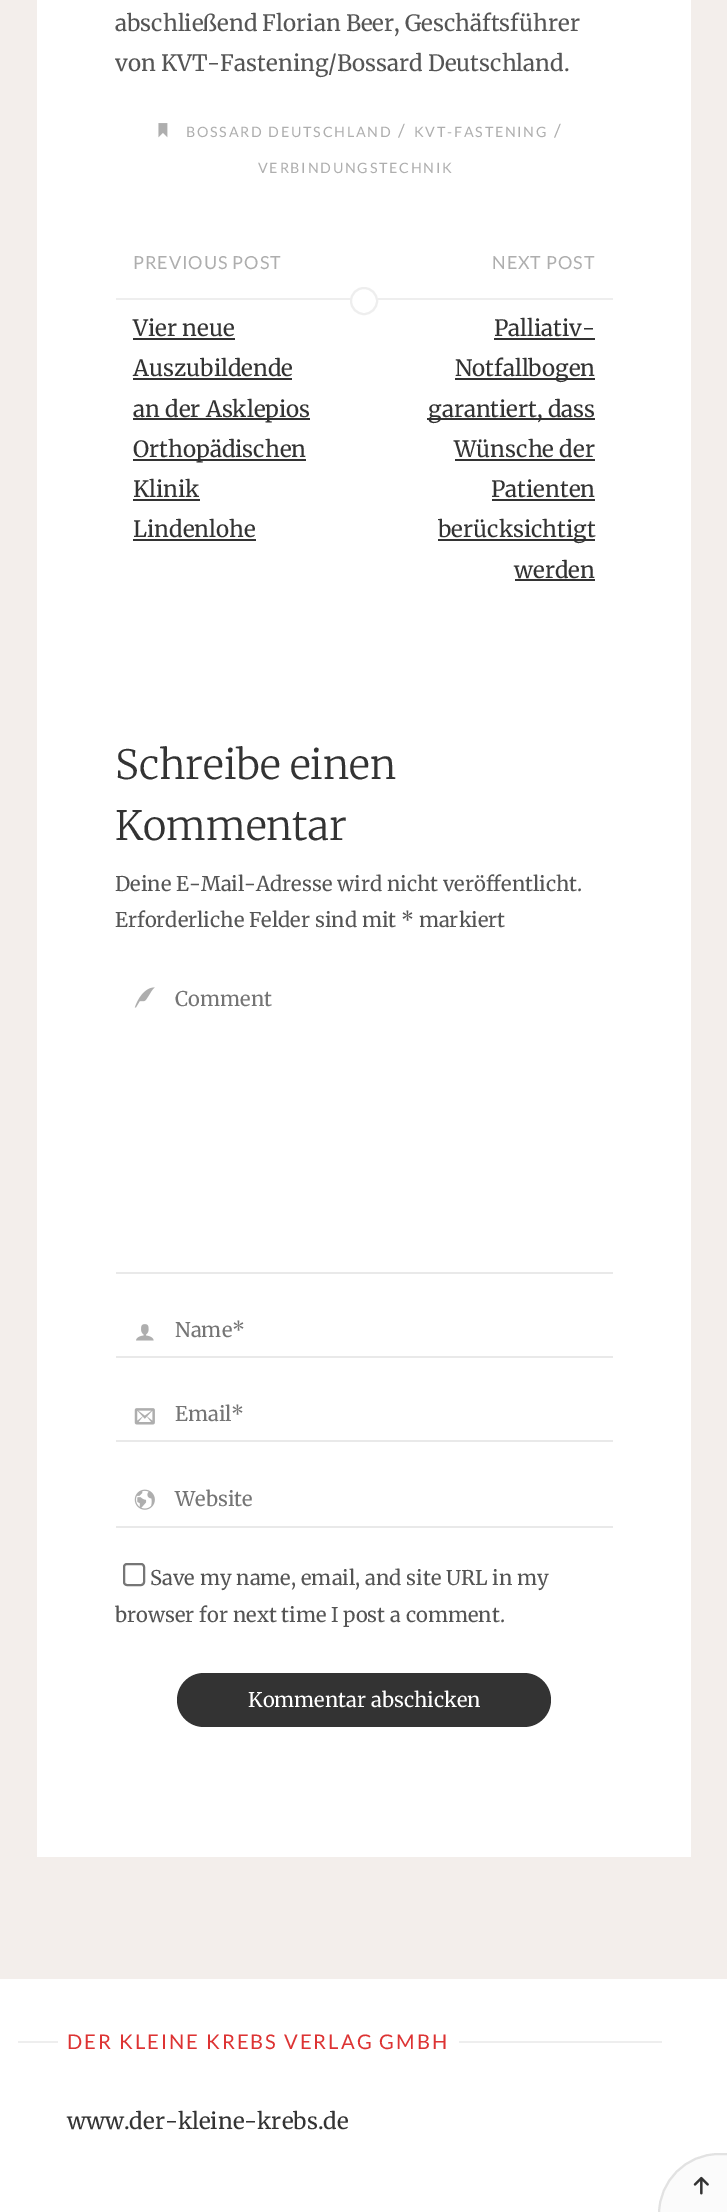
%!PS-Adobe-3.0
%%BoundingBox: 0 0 727 2212
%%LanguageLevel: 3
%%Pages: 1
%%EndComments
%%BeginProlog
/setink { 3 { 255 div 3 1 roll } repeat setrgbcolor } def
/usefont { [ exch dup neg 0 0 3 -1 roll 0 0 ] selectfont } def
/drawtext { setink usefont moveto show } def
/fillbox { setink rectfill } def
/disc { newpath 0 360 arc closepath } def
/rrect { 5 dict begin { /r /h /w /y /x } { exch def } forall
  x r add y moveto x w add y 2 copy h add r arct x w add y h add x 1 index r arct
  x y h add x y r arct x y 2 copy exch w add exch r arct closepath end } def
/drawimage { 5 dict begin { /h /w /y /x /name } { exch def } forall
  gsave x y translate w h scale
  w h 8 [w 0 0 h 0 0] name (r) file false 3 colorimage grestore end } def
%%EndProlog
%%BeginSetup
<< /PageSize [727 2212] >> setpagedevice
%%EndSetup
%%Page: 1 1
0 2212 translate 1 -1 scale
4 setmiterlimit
0 0 727 2212 243 238 235 fillbox
37 0 654 1857 255 255 255 fillbox
(abschließend Florian Beer, Geschäftsführer) 115 31 /Merriweather-Regular 22.4 85 85 85 drawtext
(von KVT-Fastening/Bossard Deutschland.) 115 71 /Merriweather-Regular 22.4 85 85 85 drawtext
(assets/img1.rgb) 158 123 10 15 drawimage
/Lato-Regular 14.3 usefont
174 174 174 setink
186 137 moveto 1.75 0 (BOSSARD DEUTSCHLAND) ashow
/Lato-Regular 18 usefont
398 137 moveto 1.75 0 (/) ashow
/Lato-Regular 14.3 usefont
414 137 moveto 1.75 0 (KVT-FASTENING) ashow
/Lato-Regular 18 usefont
554 137 moveto 1.75 0 (/) ashow
/Lato-Regular 14.3 usefont
258 173 moveto 1.75 0 (VERBINDUNGSTECHNIK) ashow
/Lato-Regular 18 usefont
133 269 moveto 0.9 0 (PREVIOUS POST) ashow
116 298 235 2 238 238 238 fillbox
255 255 255 setink
364 287 moveto 364 315 lineto 356.5 315 350 308.5 350 301 curveto 350 293.5 356.5 287 364 287 curveto closepath fill
377 298 236 2 238 238 238 fillbox
gsave
116 247 248 315 rectclip
2 setlinewidth
364 301 13 disc stroke
grestore
(Vier neue) 133 336 /Merriweather-Regular 22.4 51 51 51 drawtext
133 338 102 2 51 51 51 fillbox
(Auszubildende) 133 376 /Merriweather-Regular 22.4 51 51 51 drawtext
133 378 159 2 51 51 51 fillbox
133 418 177 2 51 51 51 fillbox
(an der Asklepios) 133 417 /Merriweather-Regular 22.4 51 51 51 drawtext
133 459 173 2 51 51 51 fillbox
(Orthopädischen) 133 457 /Merriweather-Regular 22.4 51 51 51 drawtext
(Klinik) 133 497 /Merriweather-Regular 22.4 51 51 51 drawtext
133 499 67 2 51 51 51 fillbox
(Lindenlohe) 133 537 /Merriweather-Regular 22.4 51 51 51 drawtext
133 539 123 2 51 51 51 fillbox
/Lato-Regular 18 usefont
174 174 174 setink
492 269 moveto 0.9 0 (NEXT POST) ashow
255 255 255 setink
364 287 moveto 371.5 287 378 293.5 378 301 curveto 378 308.5 371.5 315 364 315 curveto closepath fill
gsave
364 247 249 355 rectclip
238 238 238 setink
2 setlinewidth
364 301 13 disc stroke
grestore
(Palliativ-) 494 336 /Merriweather-Regular 22.4 51 51 51 drawtext
494 338 101 2 51 51 51 fillbox
455 378 140 2 51 51 51 fillbox
(Notfallbogen) 455 376 /Merriweather-Regular 22.4 51 51 51 drawtext
427 418 168 2 51 51 51 fillbox
(garantiert, dass) 428 417 /Merriweather-Regular 22.4 51 51 51 drawtext
(Wünsche der) 454 457 /Merriweather-Regular 22.4 51 51 51 drawtext
455 459 140 2 51 51 51 fillbox
(Patienten) 491 497 /Merriweather-Regular 22.4 51 51 51 drawtext
492 499 103 2 51 51 51 fillbox
438 539 157 2 51 51 51 fillbox
(berücksichtigt) 438 537 /Merriweather-Regular 22.4 51 51 51 drawtext
(werden) 514 578 /Merriweather-Regular 22.4 51 51 51 drawtext
515 579 80 2 51 51 51 fillbox
(Schreibe einen) 115 779 /Merriweather-Light 40.25 51 51 51 drawtext
(Kommentar) 115 840 /Merriweather-Light 40.25 51 51 51 drawtext
(Deine E-Mail-Adresse wird nicht veröffentlicht.) 115 891 /Merriweather-Regular 20.2 85 85 85 drawtext
(Erforderliche Felder sind mit * markiert) 115 927 /Merriweather-Regular 20.2 85 85 85 drawtext
(assets/img2.rgb) 134 987 21 21 drawimage
116 1272 497 2 233 233 233 fillbox
(Comment) 175 1006 /Merriweather-Regular 20.2 117 117 117 drawtext
(assets/img3.rgb) 136 1324 18 17 drawimage
116 1356 497 2 233 233 233 fillbox
(Name*) 175 1337 /Merriweather-Regular 20.2 117 117 117 drawtext
(assets/img4.rgb) 134 1408 21 17 drawimage
116 1440 497 2 233 233 233 fillbox
(Email*) 175 1421 /Merriweather-Regular 20.2 117 117 117 drawtext
(assets/img5.rgb) 134 1489 21 21 drawimage
116 1526 497 2 233 233 233 fillbox
(Website) 175 1506 /Merriweather-Regular 20.2 117 117 117 drawtext
118 118 118 setink
2 setlinewidth
124 1564 20 21 3 rrect stroke
(Save my name, email, and site URL in my) 150 1585 /Merriweather-Regular 20.2 85 85 85 drawtext
(browser for next time I post a comment.) 115 1622 /Merriweather-Regular 20.2 85 85 85 drawtext
51 51 51 setink
177 1673 374 54 27 rrect fill
(Kommentar abschicken) 248 1707 /Merriweather-Regular 20.2 255 255 255 drawtext
0 1979 727 233 255 255 255 fillbox
18 2041 644 2 238 238 238 fillbox
58 2041 401 2 255 255 255 fillbox
/Lato-Regular 20.2 usefont
221 51 51 setink
67 2049 moveto 2 0 (DER KLEINE KREBS VERLAG GMBH) ashow
(www.der-kleine-krebs.de) 67 2129 /Merriweather-Regular 22.4 51 51 51 drawtext
251 251 251 setink
719 2154 moveto 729 2154 lineto 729 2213 lineto 659 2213 lineto 659 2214 lineto 659 2181 686 2154 719 2154 curveto closepath gsave fill grestore
226 226 226 setink
stroke
(assets/img6.rgb) 693 2176 16 19 drawimage
showpage
%%EOF
